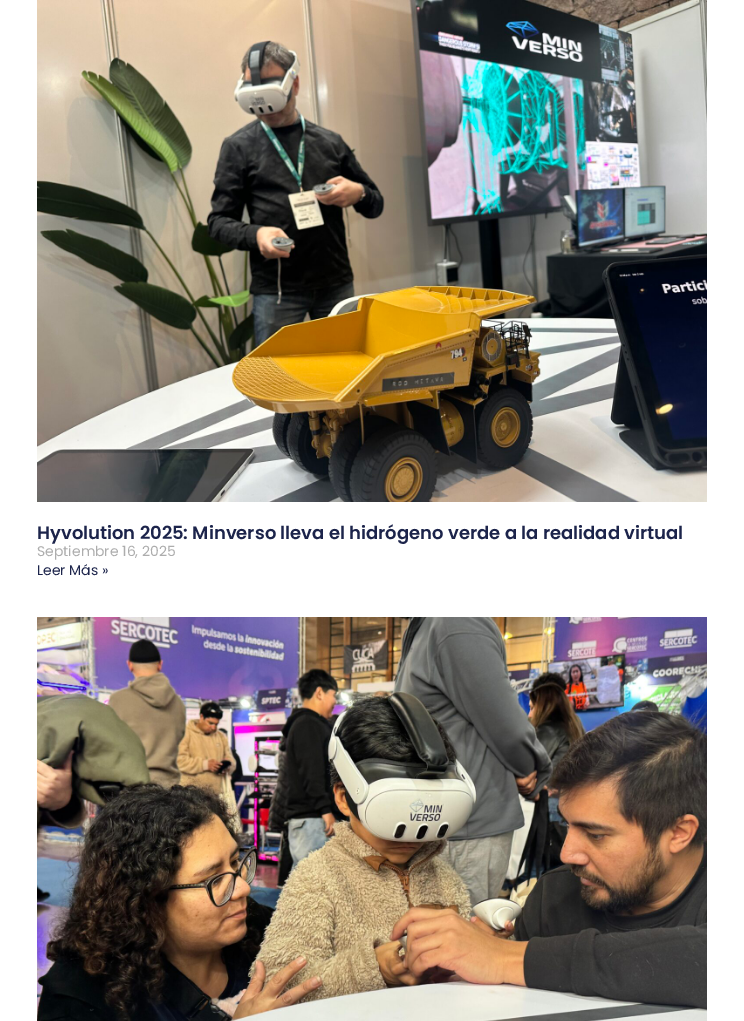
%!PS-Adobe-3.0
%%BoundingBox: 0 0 744 1021
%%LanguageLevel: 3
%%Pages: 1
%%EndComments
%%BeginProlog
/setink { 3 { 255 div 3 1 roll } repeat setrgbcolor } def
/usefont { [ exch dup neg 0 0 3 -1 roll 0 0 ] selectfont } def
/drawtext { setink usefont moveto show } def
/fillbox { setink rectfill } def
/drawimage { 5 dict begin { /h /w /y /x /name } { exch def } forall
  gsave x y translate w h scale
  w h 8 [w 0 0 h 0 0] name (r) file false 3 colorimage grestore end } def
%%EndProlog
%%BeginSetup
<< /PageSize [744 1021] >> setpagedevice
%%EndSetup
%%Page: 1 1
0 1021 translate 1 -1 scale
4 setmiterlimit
0 0 744 1021 255 255 255 fillbox
(assets/img1.rgb) 37 0 670 502 drawimage
(Hyvolution 2025: Minverso lleva el hidrógeno verde a la realidad virtual) 37 539 /Poppins-SemiBold 18 28 36 75 drawtext
(Septiembre 16, 2025) 37 556 /Poppins-Regular 14 173 173 173 drawtext
(Leer Más ») 37 575 /Poppins-Regular 14 28 36 75 drawtext
(assets/img2.rgb) 37 617 670 404 drawimage
showpage
%%EOF
